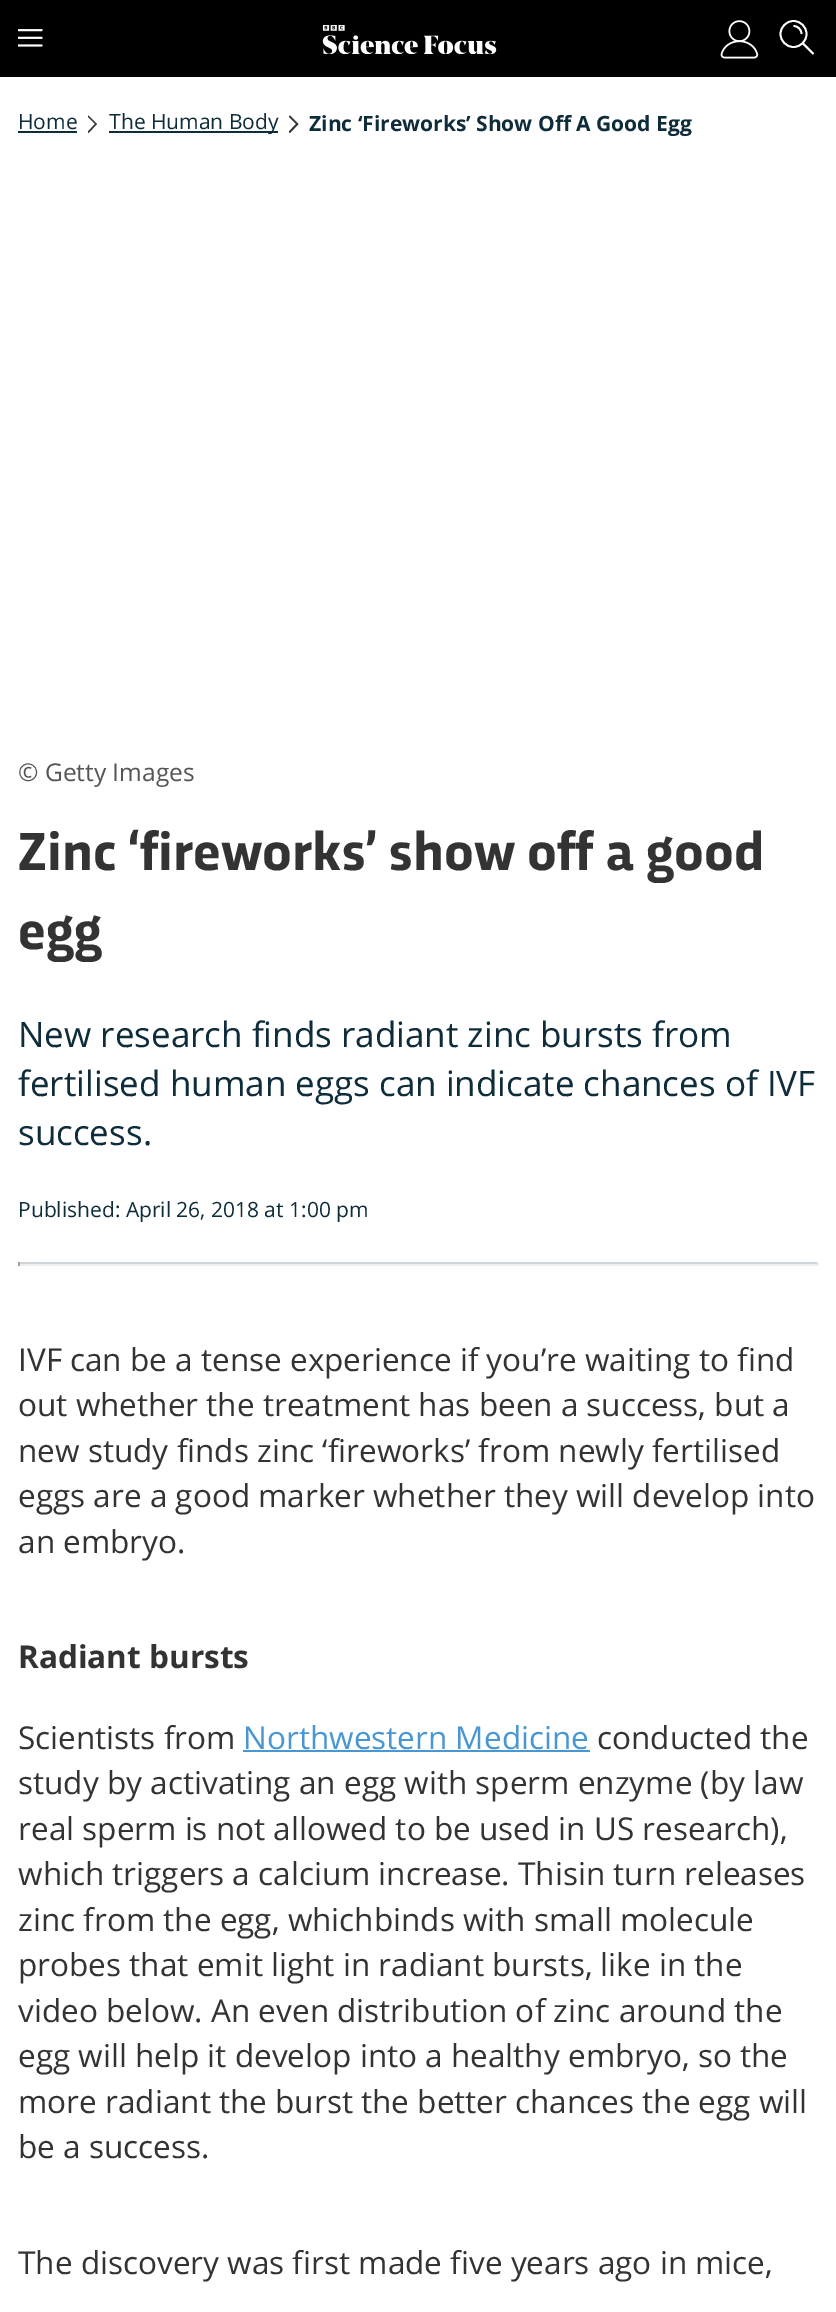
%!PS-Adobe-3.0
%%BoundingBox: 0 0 836 2312
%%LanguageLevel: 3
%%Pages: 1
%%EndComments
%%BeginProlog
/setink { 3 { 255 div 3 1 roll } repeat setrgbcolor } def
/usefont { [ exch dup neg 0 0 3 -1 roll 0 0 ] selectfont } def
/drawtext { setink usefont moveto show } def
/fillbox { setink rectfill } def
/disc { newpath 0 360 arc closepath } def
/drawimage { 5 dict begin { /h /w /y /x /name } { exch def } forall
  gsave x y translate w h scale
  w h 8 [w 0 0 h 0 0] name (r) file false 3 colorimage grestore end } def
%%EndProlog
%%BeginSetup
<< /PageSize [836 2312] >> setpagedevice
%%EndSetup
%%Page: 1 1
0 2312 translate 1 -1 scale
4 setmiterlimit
0 0 836 2312 255 255 255 fillbox
0 0 836 77 0 0 0 fillbox
(assets/img1.rgb) 18 29 25 18 drawimage
(assets/img2.rgb) 322 25 175 29 drawimage
(assets/img3.rgb) 720 20 39 39 drawimage
255 255 255 setink
1.8 setlinewidth
793.5 34 13 disc stroke
801.5 34 moveto 801.5 29.5 798 26 793.5 26 curveto stroke
1 setlinejoin
813.5 54 moveto 802.5 43 lineto stroke
(Home) 18 129 /OpenSans-Regular 21 15 44 59 drawtext
18 131 59 2 15 44 59 fillbox
gsave
88 109 10 31 rectclip
52 52 52 setink
88.5 133 moveto 97 124 lineto 88.5 115.5 lineto 87.5 116.5 lineto 95 124 lineto 87.5 132 lineto closepath eofill
grestore
109 131 169 2 15 44 59 fillbox
(The Human Body) 109 129 /OpenSans-Regular 21 15 44 59 drawtext
gsave
289 109 10 31 rectclip
52 52 52 setink
290 133 moveto 298.5 124 lineto 290 115.5 lineto 288.5 116.5 lineto 296 124 lineto 288.5 132 lineto closepath eofill
grestore
(Zinc ‘Fireworks’ Show Off A Good Egg) 309 131 /OpenSans-Bold 21 15 44 59 drawtext
(© Getty Images) 18 781 /OpenSans-Regular 24.5 85 85 85 drawtext
(Zinc ‘fireworks’ show off a good) 18 870 /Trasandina-Bold 56 51 51 51 drawtext
(egg) 18 949 /Trasandina-Bold 56 51 51 51 drawtext
(New research finds radiant zinc bursts from) 18 1047 /OpenSans-Regular 35 15 44 59 drawtext
(fertilised human eggs can indicate chances of IVF) 18 1096 /OpenSans-Regular 35 15 44 59 drawtext
(success.) 18 1145 /OpenSans-Regular 35 15 44 59 drawtext
(Published: April 26, 2018 at 1:00 pm) 18 1217 /OpenSans-Regular 21 15 44 59 drawtext
18 1262 801 2 207 213 216 fillbox
817 1262 2 4 238 238 238 fillbox
18 1264 801 2 238 238 238 fillbox
18 1262 2 4 159 159 159 fillbox
(IVF can be a tense experience if you’re waiting to find) 18 1371 /OpenSans-Regular 31.5 51 51 51 drawtext
(out whether the treatment has been a success, but a) 18 1416 /OpenSans-Regular 31.5 51 51 51 drawtext
(new study finds zinc ‘fireworks’ from newly fertilised) 18 1462 /OpenSans-Regular 31.5 51 51 51 drawtext
(eggs are a good marker whether they will develop into) 18 1507 /OpenSans-Regular 31.5 51 51 51 drawtext
(an embryo.) 18 1553 /OpenSans-Regular 31.5 51 51 51 drawtext
(Radiant bursts) 18 1668 /OpenSans-Bold 31.5 51 51 51 drawtext
(Scientists from) 18 1749 /OpenSans-Regular 31.5 51 51 51 drawtext
(Northwestern Medicine) 243 1749 /OpenSans-Regular 31.5 72 150 210 drawtext
243 1750 347 2 72 150 210 fillbox
(conducted the) 597 1749 /OpenSans-Regular 31.5 51 51 51 drawtext
(study by activating an egg with sperm enzyme \(by law) 18 1794 /OpenSans-Regular 31.5 51 51 51 drawtext
(real sperm is not allowed to be used in US research\),) 18 1840 /OpenSans-Regular 31.5 51 51 51 drawtext
(which triggers a calcium increase. Thisin turn releases) 18 1885 /OpenSans-Regular 31.5 51 51 51 drawtext
(zinc from the egg, whichbinds with small molecule) 18 1931 /OpenSans-Regular 31.5 51 51 51 drawtext
(probes that emit light in radiant bursts, like in the) 18 1976 /OpenSans-Regular 31.5 51 51 51 drawtext
(video below. An even distribution of zinc around the) 18 2022 /OpenSans-Regular 31.5 51 51 51 drawtext
(egg will help it develop into a healthy embryo, so the) 18 2067 /OpenSans-Regular 31.5 51 51 51 drawtext
(more radiant the burst the better chances the egg will) 18 2113 /OpenSans-Regular 31.5 51 51 51 drawtext
(be a success.) 18 2158 /OpenSans-Regular 31.5 51 51 51 drawtext
gsave
18 1300 801 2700 rectclip
(The discovery was first made five years ago in mice,) 18 2274 /OpenSans-Regular 31.5 51 51 51 drawtext
grestore
showpage
%%EOF
